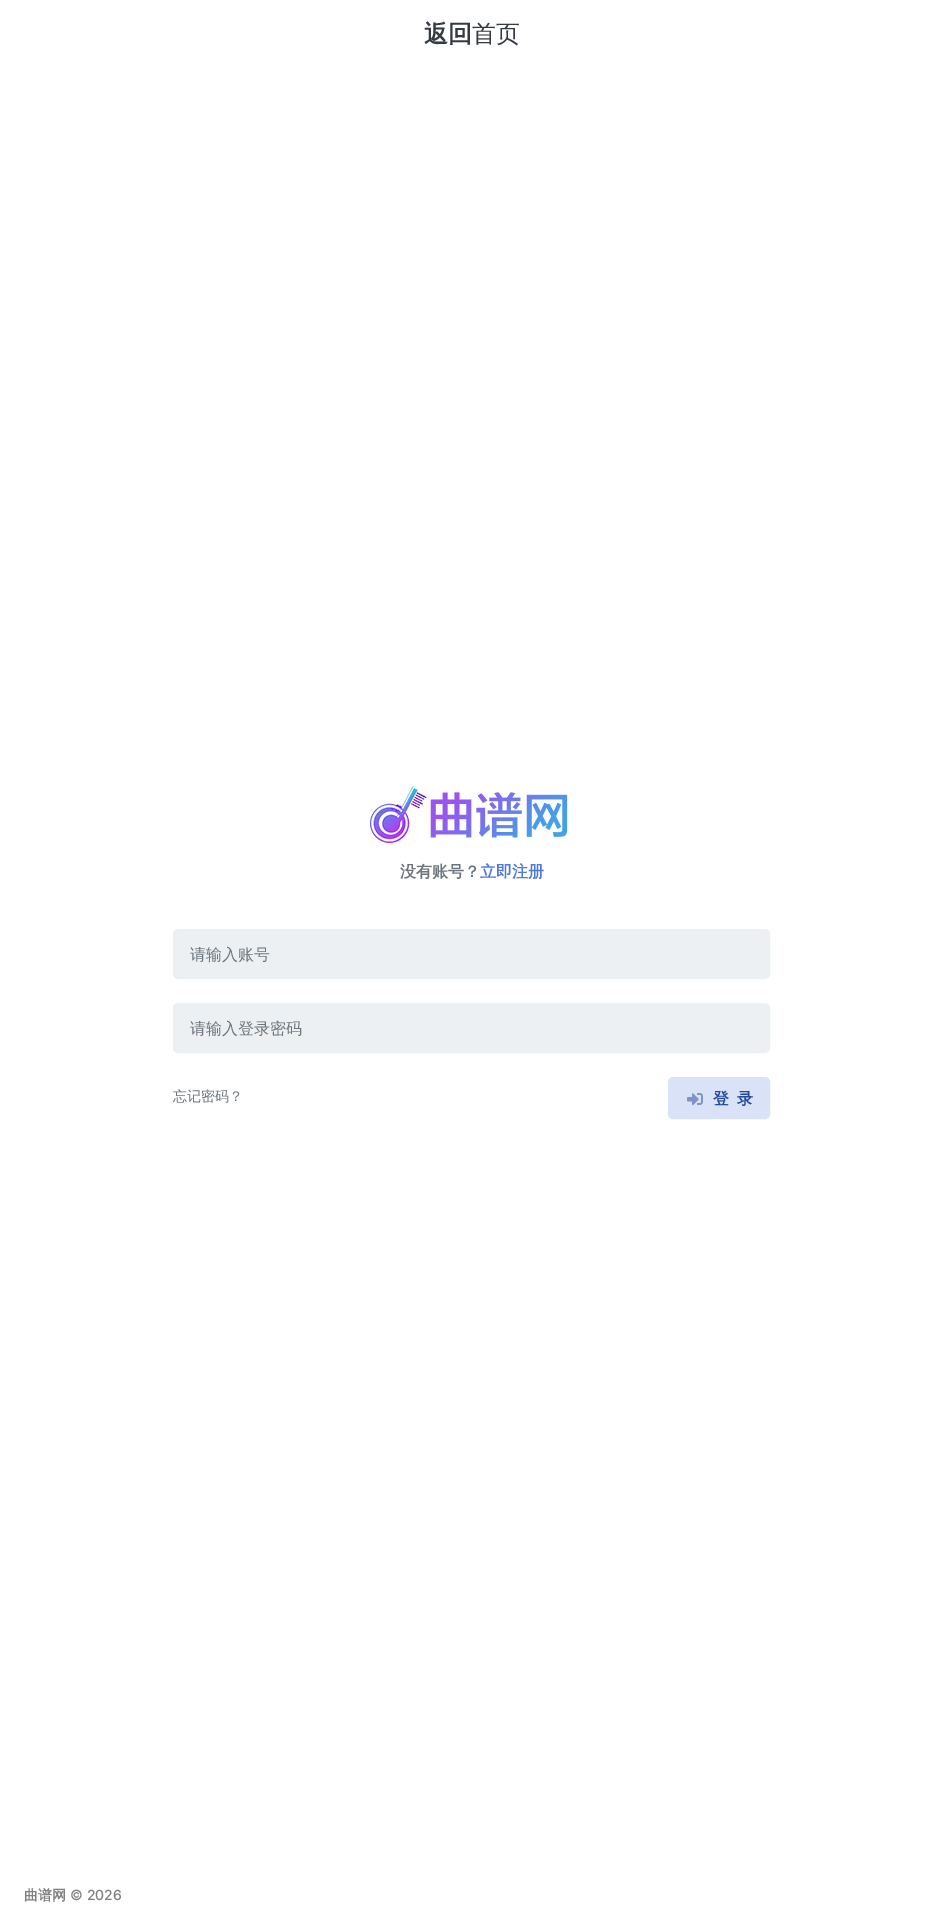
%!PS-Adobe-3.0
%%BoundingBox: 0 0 943 1930
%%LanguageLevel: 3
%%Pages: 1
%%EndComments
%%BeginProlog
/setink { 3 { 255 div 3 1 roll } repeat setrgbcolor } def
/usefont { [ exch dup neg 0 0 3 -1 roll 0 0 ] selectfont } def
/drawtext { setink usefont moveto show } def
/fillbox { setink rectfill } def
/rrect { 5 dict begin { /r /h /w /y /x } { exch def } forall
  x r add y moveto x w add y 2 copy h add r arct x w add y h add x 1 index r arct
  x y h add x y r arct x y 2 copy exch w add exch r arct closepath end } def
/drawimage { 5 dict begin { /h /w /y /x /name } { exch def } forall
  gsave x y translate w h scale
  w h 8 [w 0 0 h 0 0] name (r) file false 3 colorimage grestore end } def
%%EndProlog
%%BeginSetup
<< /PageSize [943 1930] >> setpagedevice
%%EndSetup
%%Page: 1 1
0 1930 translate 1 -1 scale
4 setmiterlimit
0 0 943 1930 255 255 255 fillbox
(返回) 424 42 /WenQuanYiZenHei-Bold 24 52 58 64 drawtext
(首页) 472 42 /WenQuanYiZenHei-Medium 24 52 58 64 drawtext
(assets/img1.rgb) 370 786 198 57 drawimage
(没有账号？) 400 877 /WenQuanYiZenHei-Bold 16 108 117 125 drawtext
(立即注册) 480 877 /WenQuanYiZenHei-Bold 16 81 121 214 drawtext
237 240 242 setink
173.5 929.5 596 49 4.5 rrect gsave fill grestore
stroke
(请输入账号) 190 960 /WenQuanYiZenHei-Medium 16 108 117 125 drawtext
237 240 242 setink
173.5 1003.5 596 49 4.5 rrect gsave fill grestore
stroke
(请输入登录密码) 190 1034 /WenQuanYiZenHei-Medium 16 108 117 125 drawtext
(忘记密码？) 173 1101 /WenQuanYiZenHei-Medium 14 108 117 125 drawtext
217 226 246 setink
668.5 1077.5 101 41 4.5 rrect gsave fill grestore
stroke
(assets/img2.rgb) 687 1093 16 13 drawimage
(登) 713 1104 /WenQuanYiZenHei-Bold 16 37 73 156 drawtext
(录) 737 1104 /WenQuanYiZenHei-Bold 16 37 73 156 drawtext
(曲谱网) 24 1900 /WenQuanYiZenHei-Bold 14 128 128 128 drawtext
(© 2026) 70 1900 /Inter-Medium 14 128 128 128 drawtext
showpage
%%EOF
